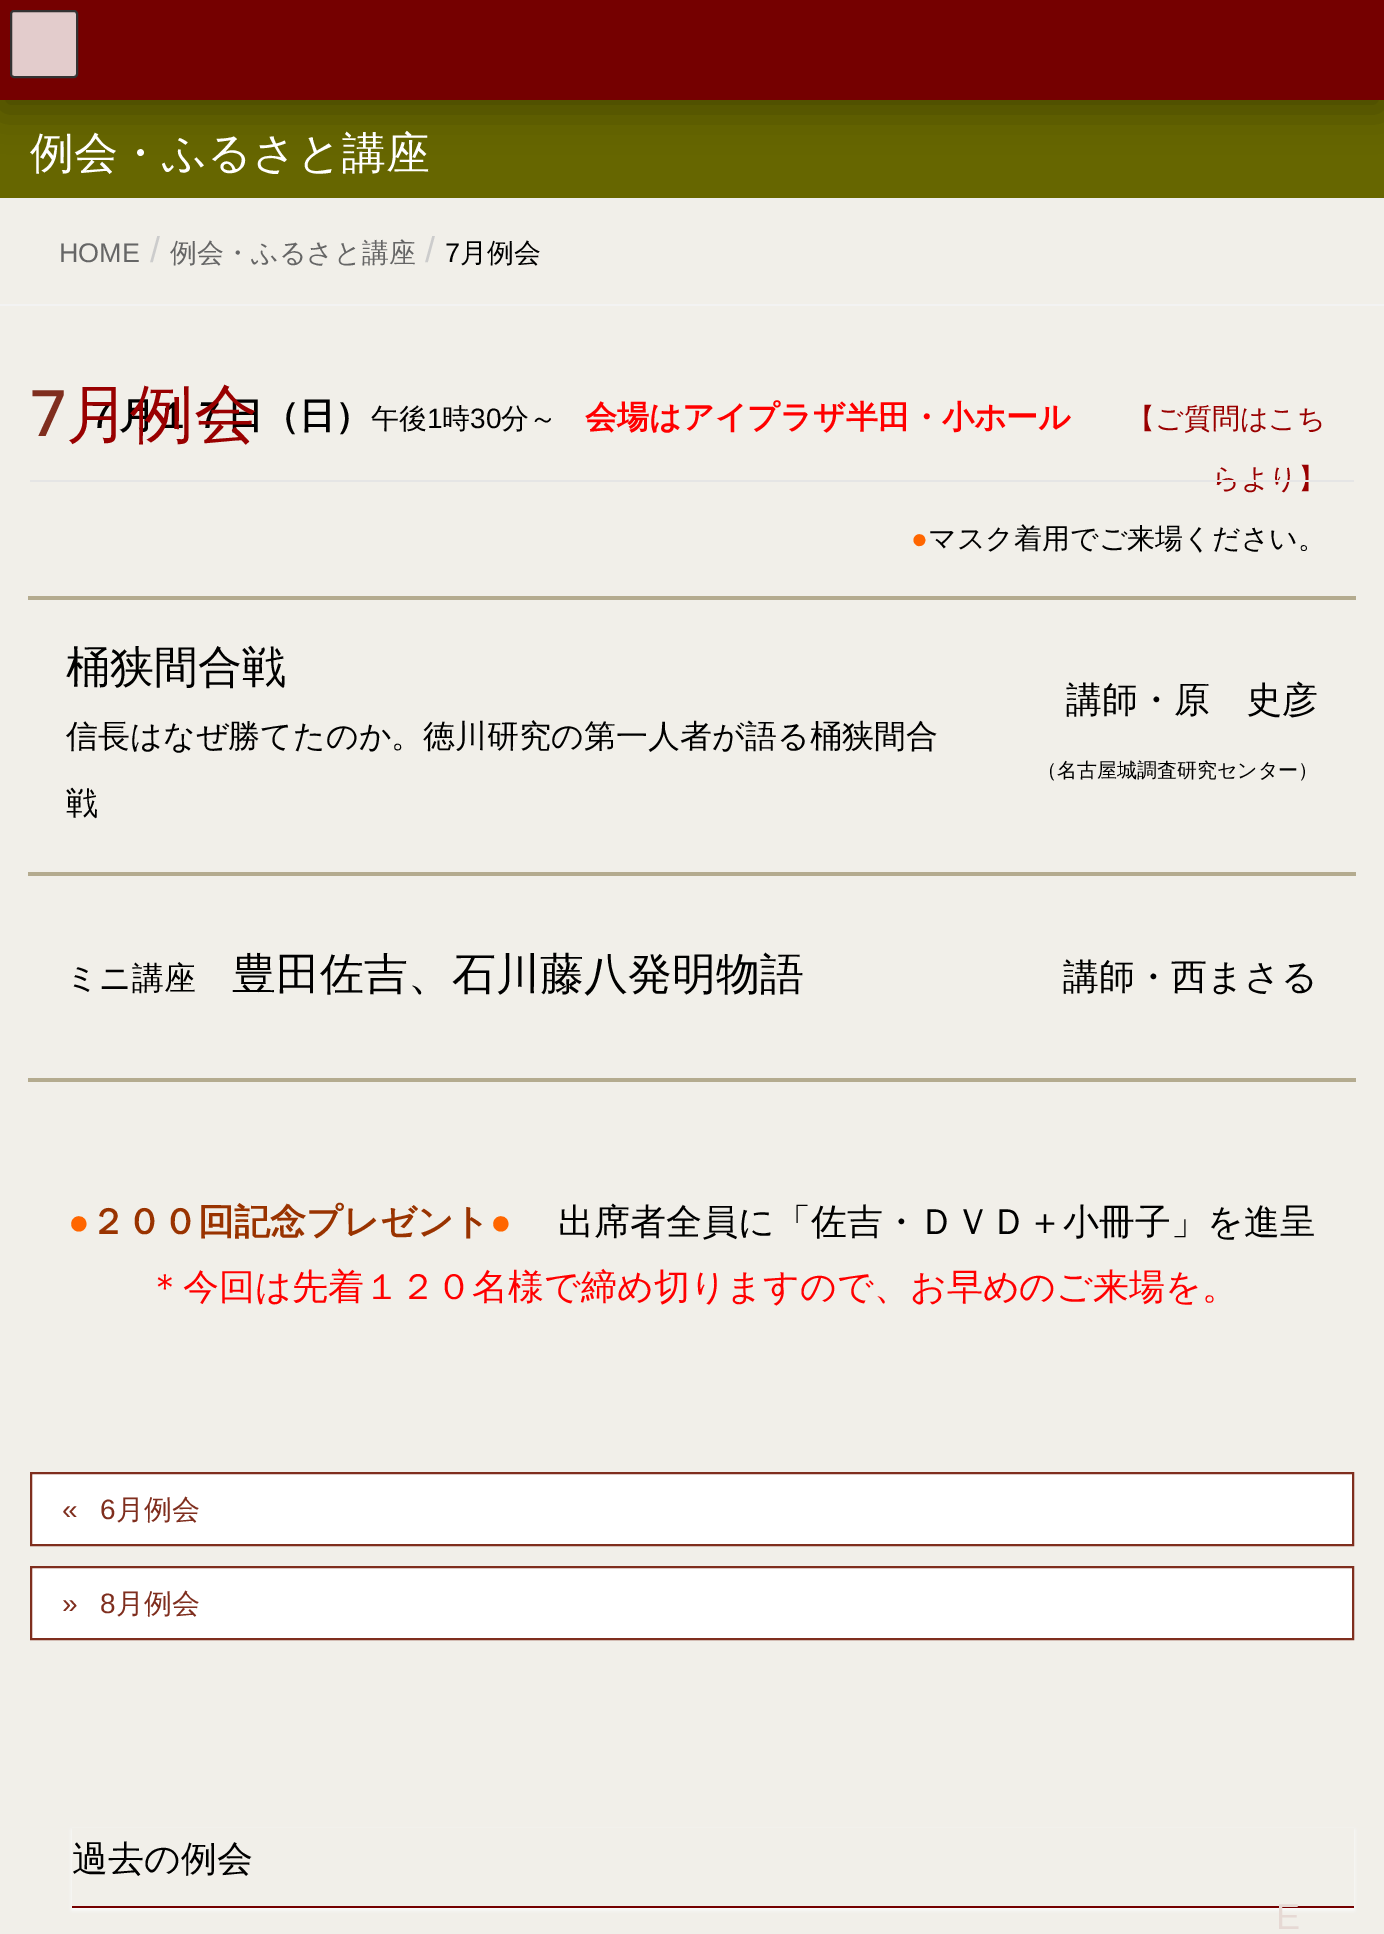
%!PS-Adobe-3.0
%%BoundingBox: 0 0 1384 1934
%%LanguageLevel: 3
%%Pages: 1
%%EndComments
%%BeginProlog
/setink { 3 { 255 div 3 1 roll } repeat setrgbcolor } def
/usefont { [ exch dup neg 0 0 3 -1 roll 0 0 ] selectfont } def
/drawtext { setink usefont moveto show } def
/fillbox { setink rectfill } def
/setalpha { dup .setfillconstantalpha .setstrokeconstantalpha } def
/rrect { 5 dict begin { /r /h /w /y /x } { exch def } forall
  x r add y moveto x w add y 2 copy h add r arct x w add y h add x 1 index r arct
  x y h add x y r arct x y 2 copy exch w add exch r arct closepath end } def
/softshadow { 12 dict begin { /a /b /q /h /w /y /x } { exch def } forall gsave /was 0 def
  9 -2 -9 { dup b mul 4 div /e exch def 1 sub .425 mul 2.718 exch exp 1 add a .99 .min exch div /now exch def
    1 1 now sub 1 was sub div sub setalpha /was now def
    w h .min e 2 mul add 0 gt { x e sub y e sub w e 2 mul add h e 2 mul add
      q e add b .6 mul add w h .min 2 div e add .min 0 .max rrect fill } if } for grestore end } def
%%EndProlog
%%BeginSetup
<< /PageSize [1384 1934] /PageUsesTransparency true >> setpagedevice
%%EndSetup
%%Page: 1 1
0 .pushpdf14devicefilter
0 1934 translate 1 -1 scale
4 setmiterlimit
0 0 1384 1934 241 239 233 fillbox
0 100 1384 98 102 102 0 fillbox
0 0 0 setink
0 10 1384 100 0 20 0.3 softshadow
0 0 1384 100 117 0 0 fillbox
227 204 204 setink
11 11 66 66 3 rrect gsave fill grestore
51 51 51 setink
2 setlinewidth
stroke
0 198 1384 2 238 238 238 fillbox
(例会・ふるさと講座) 30 168 /WenQuanYiZenHei-Medium 44 255 255 255 drawtext
0 304 1384 2 243 243 243 fillbox
(HOME) 59 262 /LiberationSans-Regular 27 102 102 102 drawtext
(/) 150 262 /LiberationSans-Regular 36 204 204 204 drawtext
(例会・ふるさと講座) 170 262 /WenQuanYiZenHei-Medium 27 102 102 102 drawtext
(/) 425 262 /LiberationSans-Regular 36 204 204 204 drawtext
(7) 445 262 /LiberationSans-Regular 27 0 0 0 drawtext
(月例会) 460 262 /WenQuanYiZenHei-Medium 27 0 0 0 drawtext
(らより】) 1212 488 /WenQuanYiZenHei-Medium 28 153 0 0 drawtext
30 480 1324 2 229 229 229 fillbox
(7) 30 436 /NotoSans-Medium 64 127 46 30 drawtext
(７月１７日（日）) 83 428 /WenQuanYiZenHei-Bold 36 0 0 0 drawtext
(月例会) 66 436 /WenQuanYiZenHei-Medium 64 153 0 0 drawtext
28 596 1328 4 180 171 143 fillbox
(午後) 371 428 /WenQuanYiZenHei-Medium 28 0 0 0 drawtext
(1) 427 428 /LiberationSans-Regular 28 0 0 0 drawtext
(時) 442 428 /WenQuanYiZenHei-Medium 28 0 0 0 drawtext
(30) 470 428 /LiberationSans-Regular 28 0 0 0 drawtext
(分～) 501 428 /WenQuanYiZenHei-Medium 28 0 0 0 drawtext
(会場はアイプラザ半田・小ホール) 585 428 /WenQuanYiZenHei-Bold 32 255 0 0 drawtext
(【ご質問はこち) 1127 428 /WenQuanYiZenHei-Medium 28 153 0 0 drawtext
(●) 911 548 /LiberationSans-Regular 28 255 102 0 drawtext
(マスク着用でご来場ください。) 928 548 /WenQuanYiZenHei-Medium 28 0 0 0 drawtext
28 872 1328 4 180 171 143 fillbox
(桶狭間合戦) 66 682 /WenQuanYiZenHei-Medium 44 0 0 0 drawtext
(信長はなぜ勝てたのか。徳川研究の第一人者が語る桶狭間合) 66 747 /WenQuanYiZenHei-Medium 32 0 0 0 drawtext
(戦) 66 814 /WenQuanYiZenHei-Medium 32 0 0 0 drawtext
(講師・原　史彦) 1066 712 /WenQuanYiZenHei-Medium 36 0 0 0 drawtext
(（名古屋城調査研究センター）) 1037 777 /WenQuanYiZenHei-Medium 20 0 0 0 drawtext
28 1078 1328 4 180 171 143 fillbox
(ミニ講座) 66 989 /WenQuanYiZenHei-Medium 32 0 0 0 drawtext
(豊田佐吉、石川藤八発明物語) 232 989 /WenQuanYiZenHei-Medium 44 0 0 0 drawtext
(講師・西まさる) 1063 989 /WenQuanYiZenHei-Medium 36 0 0 0 drawtext
(●) 68 1234 /LiberationSans-Regular 36 255 102 0 drawtext
(２００回記念プレゼント) 90 1234 /WenQuanYiZenHei-Bold 36 153 51 0 drawtext
(●) 490 1234 /LiberationSans-Regular 36 255 102 0 drawtext
(出席者全員に「佐吉・ＤＶＤ＋小冊子」を進呈) 558 1234 /WenQuanYiZenHei-Medium 36 0 0 0 drawtext
(＊今回は先着１２０名様で締め切りますので、お早めのご来場を。) 147 1299 /WenQuanYiZenHei-Medium 36 255 0 0 drawtext
255 255 255 setink
31 1473 moveto 1353 1473 lineto 1353 1545 lineto 31 1545 lineto closepath gsave fill grestore
127 46 30 setink
stroke
(«) 62 1519 /LiberationSans-Regular 28 127 46 30 drawtext
(6) 100 1519 /LiberationSans-Regular 28 127 46 30 drawtext
(月例会) 116 1519 /WenQuanYiZenHei-Medium 28 127 46 30 drawtext
255 255 255 setink
31 1567 moveto 1353 1567 lineto 1353 1639 lineto 31 1639 lineto closepath gsave fill grestore
127 46 30 setink
stroke
(») 62 1613 /LiberationSans-Regular 28 127 46 30 drawtext
(8) 100 1613 /LiberationSans-Regular 28 127 46 30 drawtext
(月例会) 116 1613 /WenQuanYiZenHei-Medium 28 127 46 30 drawtext
gsave
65 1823 moveto 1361 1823 lineto 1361 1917 lineto 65 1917 lineto closepath 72 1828 moveto 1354 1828 lineto 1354 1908 lineto 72 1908 lineto closepath eoclip newpath
255 255 255 setink
72 1830 1282 80 0 2 0.9 softshadow
grestore
(過去の例会) 72 1871 /WenQuanYiZenHei-Medium 36 0 0 0 drawtext
72 1906 1282 2 117 0 0 fillbox
(E) 1276 1929 /LiberationSans-Regular 36 230 217 212 drawtext
.poppdf14devicefilter showpage
%%EOF
